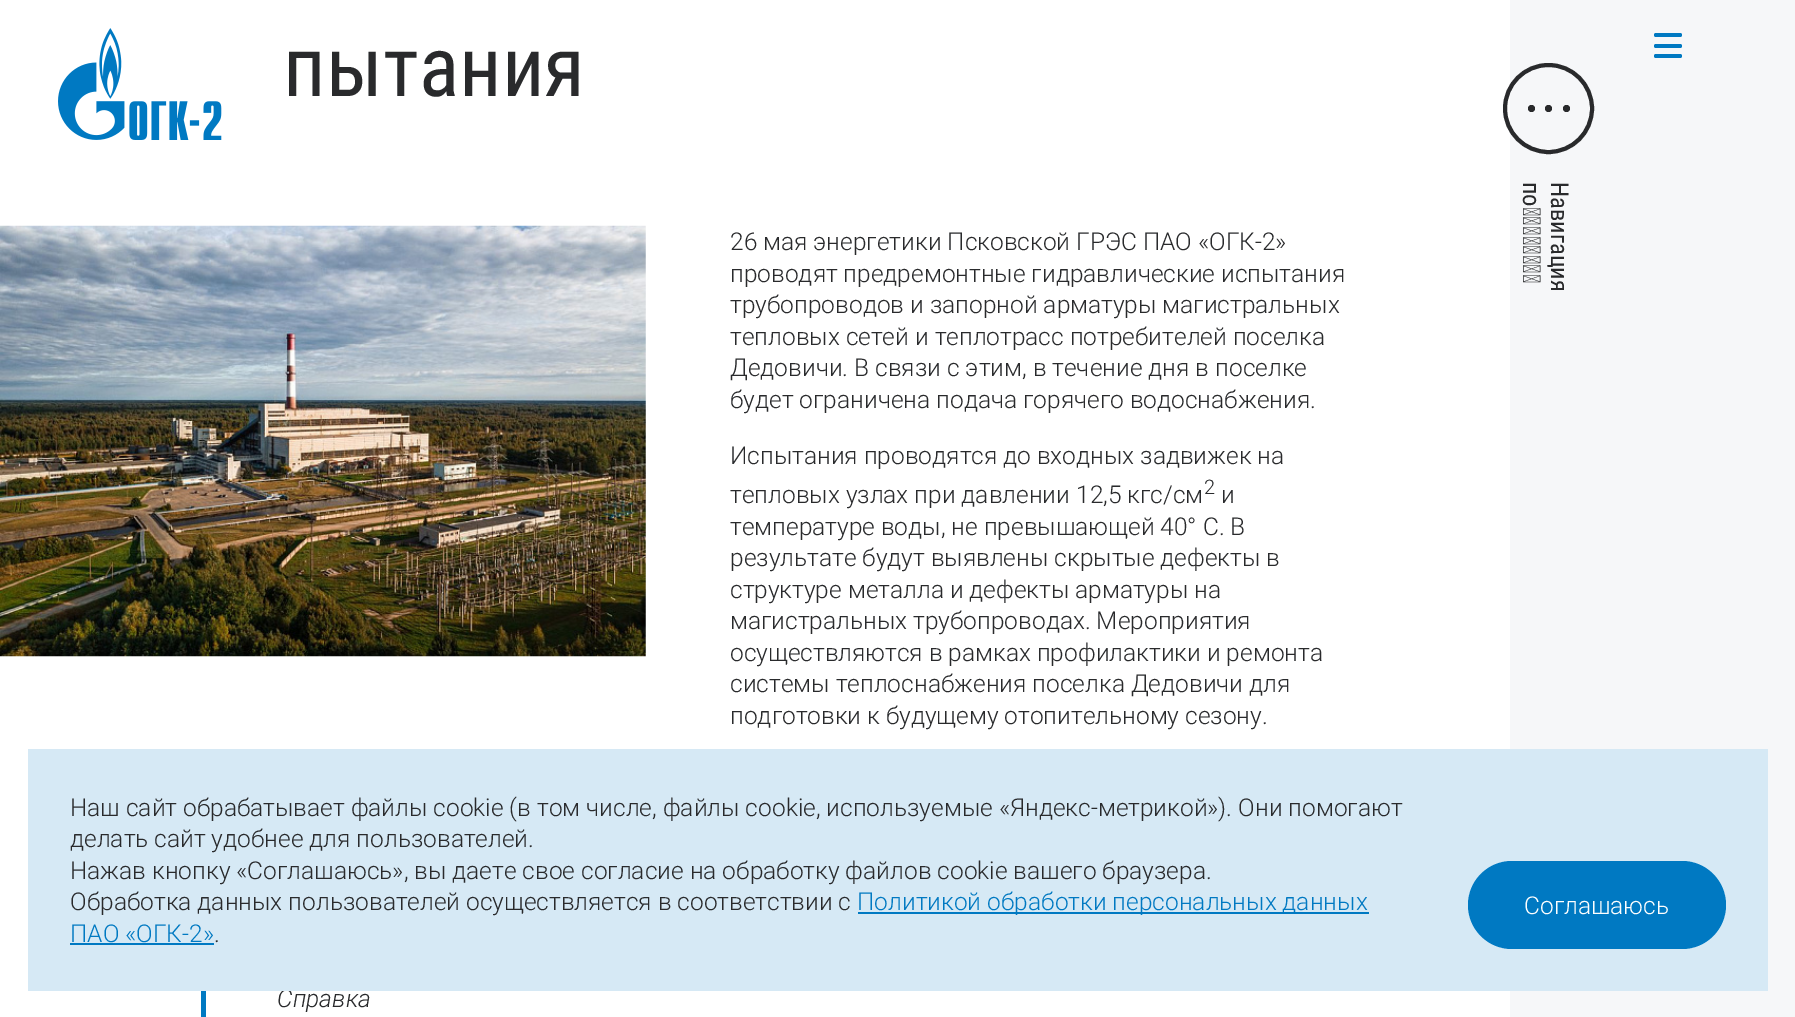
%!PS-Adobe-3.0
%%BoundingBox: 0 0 1795 1017
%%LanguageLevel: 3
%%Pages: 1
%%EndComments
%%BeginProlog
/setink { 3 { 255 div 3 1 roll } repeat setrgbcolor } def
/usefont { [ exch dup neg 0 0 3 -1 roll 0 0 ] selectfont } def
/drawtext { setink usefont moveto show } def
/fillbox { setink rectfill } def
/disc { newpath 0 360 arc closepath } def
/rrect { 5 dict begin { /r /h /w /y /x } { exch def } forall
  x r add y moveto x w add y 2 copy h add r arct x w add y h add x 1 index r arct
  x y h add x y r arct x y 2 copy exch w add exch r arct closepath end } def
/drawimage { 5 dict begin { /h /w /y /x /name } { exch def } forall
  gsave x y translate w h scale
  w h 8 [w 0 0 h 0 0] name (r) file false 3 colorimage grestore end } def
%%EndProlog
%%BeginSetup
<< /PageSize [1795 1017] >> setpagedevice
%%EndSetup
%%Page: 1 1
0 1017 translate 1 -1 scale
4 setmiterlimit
0 0 1795 1017 246 247 249 fillbox
0 0 1510 1017 255 255 255 fillbox
(assets/img1.rgb) 58 28 164 112 drawimage
0 121 194 setink
1654 33 28 4 2 rrect fill
1654 44 28 4 2 rrect fill
1654 54 28 4 2 rrect fill
(пытания) 283 96 /RobotoCondensed-Regular 84 41 42 44 drawtext
(assets/img2.rgb) 0 225 646 432 drawimage
(26 мая энергетики Псковской ГРЭС ПАО «ОГК-2») 730 250 /Roboto-Light 24.5 41 42 44 drawtext
(проводят предремонтные гидравлические испытания) 730 282 /Roboto-Light 24.5 41 42 44 drawtext
(трубопроводов и запорной арматуры магистральных) 730 313 /Roboto-Light 24.5 41 42 44 drawtext
(тепловых сетей и теплотрасс потребителей поселка) 730 345 /Roboto-Light 24.5 41 42 44 drawtext
(Дедовичи. В связи с этим, в течение дня в поселке) 730 376 /Roboto-Light 24.5 41 42 44 drawtext
(будет ограничена подача горячего водоснабжения.) 730 408 /Roboto-Light 24.5 41 42 44 drawtext
(Испытания проводятся до входных задвижек на) 730 464 /Roboto-Light 24.5 41 42 44 drawtext
(тепловых узлах при давлении 12,5 кгс/см) 730 503 /Roboto-Light 24.5 41 42 44 drawtext
(2) 1204 494 /Roboto-Light 20 41 42 44 drawtext
(и) 1221 503 /Roboto-Light 24.5 41 42 44 drawtext
(температуре воды, не превышающей 40° С. В) 730 535 /Roboto-Light 24.5 41 42 44 drawtext
(результате будут выявлены скрытые дефекты в) 730 566 /Roboto-Light 24.5 41 42 44 drawtext
(структуре металла и дефекты арматуры на) 730 598 /Roboto-Light 24.5 41 42 44 drawtext
(магистральных трубопроводах. Мероприятия) 730 629 /Roboto-Light 24.5 41 42 44 drawtext
(осуществляются в рамках профилактики и ремонта) 730 661 /Roboto-Light 24.5 41 42 44 drawtext
(системы теплоснабжения поселка Дедовичи для) 730 692 /Roboto-Light 24.5 41 42 44 drawtext
(подготовки к будущему отопительному сезону.) 730 724 /Roboto-Light 24.5 41 42 44 drawtext
201 984 5 33 0 121 194 fillbox
(Справка) 277 1007 /Roboto-LightItalic 24.5 41 42 44 drawtext
4 setlinewidth
1548.5 108.5 43.5 disc stroke
1531.5 108.5 3.5 disc fill
1548.5 108.5 3.5 disc fill
1566.5 108.5 3.5 disc fill
/RobotoCondensed-Regular 24.5 usefont
gsave 1523 182 translate 90 rotate 0 0 moveto (по разделу) show grestore
gsave 1551 182 translate 90 rotate 0 0 moveto (Навигация) show grestore
28 749 1740 242 214 233 245 fillbox
(Наш сайт обрабатывает файлы cookie \(в том числе, файлы cookie, используемые «Яндекс-метрикой»\). Они помогают) 70 816 /Roboto-Light 24.5 41 42 44 drawtext
(делать сайт удобнее для пользователей.) 70 847 /Roboto-Light 24.5 41 42 44 drawtext
(Нажав кнопку «Соглашаюсь», вы даете свое согласие на обработку файлов cookie вашего браузера.) 70 879 /Roboto-Light 24.5 41 42 44 drawtext
(Обработка данных пользователей осуществляется в соответствии с) 70 910 /Roboto-Light 24.5 41 42 44 drawtext
858 912 511 2 0 121 194 fillbox
(Политикой обработки персональных данных) 857 910 /Roboto-Light 24.5 0 121 194 drawtext
(ПАО «ОГК-2») 70 942 /Roboto-Light 24.5 0 121 194 drawtext
70 943 144 2 0 121 194 fillbox
(.) 214 942 /Roboto-Light 24.5 41 42 44 drawtext
0 121 194 setink
1468 861 258 88 44 rrect fill
(Соглашаюсь) 1524 914 /Roboto-Light 24.5 255 255 255 drawtext
showpage
%%EOF
